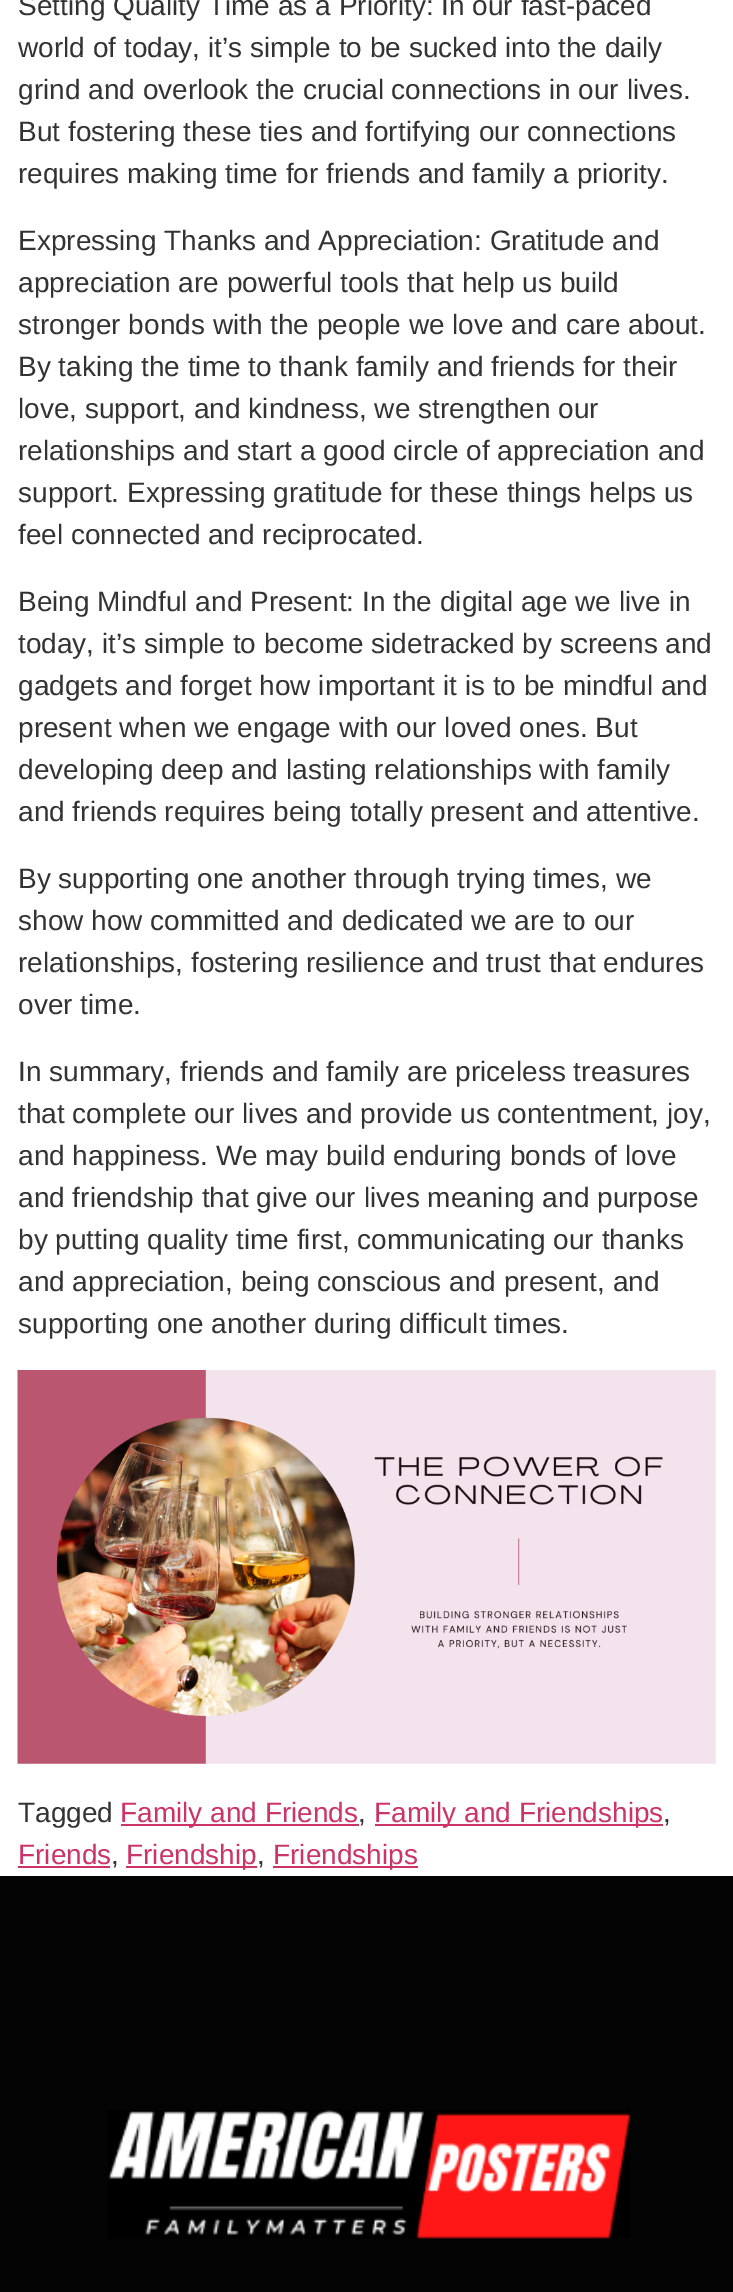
%!PS-Adobe-3.0
%%BoundingBox: 0 0 733 2292
%%LanguageLevel: 3
%%Pages: 1
%%EndComments
%%BeginProlog
/setink { 3 { 255 div 3 1 roll } repeat setrgbcolor } def
/usefont { [ exch dup neg 0 0 3 -1 roll 0 0 ] selectfont } def
/drawtext { setink usefont moveto show } def
/fillbox { setink rectfill } def
/drawimage { 5 dict begin { /h /w /y /x /name } { exch def } forall
  gsave x y translate w h scale
  w h 8 [w 0 0 h 0 0] name (r) file false 3 colorimage grestore end } def
%%EndProlog
%%BeginSetup
<< /PageSize [733 2292] >> setpagedevice
%%EndSetup
%%Page: 1 1
0 2292 translate 1 -1 scale
4 setmiterlimit
0 0 733 2292 255 255 255 fillbox
(Setting Quality Time as a Priority: In our fast-paced) 18 15 /LiberationSans-Regular 28 51 51 51 drawtext
(world of today, it’s simple to be sucked into the daily) 18 57 /LiberationSans-Regular 28 51 51 51 drawtext
(grind and overlook the crucial connections in our lives.) 18 99 /LiberationSans-Regular 28 51 51 51 drawtext
(But fostering these ties and fortifying our connections) 18 141 /LiberationSans-Regular 28 51 51 51 drawtext
(requires making time for friends and family a priority.) 18 183 /LiberationSans-Regular 28 51 51 51 drawtext
(Expressing Thanks and Appreciation: Gratitude and) 18 250 /LiberationSans-Regular 28 51 51 51 drawtext
(appreciation are powerful tools that help us build) 18 292 /LiberationSans-Regular 28 51 51 51 drawtext
(stronger bonds with the people we love and care about.) 18 334 /LiberationSans-Regular 28 51 51 51 drawtext
(By taking the time to thank family and friends for their) 18 376 /LiberationSans-Regular 28 51 51 51 drawtext
(love, support, and kindness, we strengthen our) 18 418 /LiberationSans-Regular 28 51 51 51 drawtext
(relationships and start a good circle of appreciation and) 18 460 /LiberationSans-Regular 28 51 51 51 drawtext
(support. Expressing gratitude for these things helps us) 18 502 /LiberationSans-Regular 28 51 51 51 drawtext
(feel connected and reciprocated.) 18 544 /LiberationSans-Regular 28 51 51 51 drawtext
(Being Mindful and Present: In the digital age we live in) 18 611 /LiberationSans-Regular 28 51 51 51 drawtext
(today, it’s simple to become sidetracked by screens and) 18 653 /LiberationSans-Regular 28 51 51 51 drawtext
(gadgets and forget how important it is to be mindful and) 18 695 /LiberationSans-Regular 28 51 51 51 drawtext
(present when we engage with our loved ones. But) 18 737 /LiberationSans-Regular 28 51 51 51 drawtext
(developing deep and lasting relationships with family) 18 779 /LiberationSans-Regular 28 51 51 51 drawtext
(and friends requires being totally present and attentive.) 18 821 /LiberationSans-Regular 28 51 51 51 drawtext
(By supporting one another through trying times, we) 18 888 /LiberationSans-Regular 28 51 51 51 drawtext
(show how committed and dedicated we are to our) 18 930 /LiberationSans-Regular 28 51 51 51 drawtext
(relationships, fostering resilience and trust that endures) 18 972 /LiberationSans-Regular 28 51 51 51 drawtext
(over time.) 18 1014 /LiberationSans-Regular 28 51 51 51 drawtext
(In summary, friends and family are priceless treasures) 18 1081 /LiberationSans-Regular 28 51 51 51 drawtext
(that complete our lives and provide us contentment, joy,) 18 1123 /LiberationSans-Regular 28 51 51 51 drawtext
(and happiness. We may build enduring bonds of love) 18 1165 /LiberationSans-Regular 28 51 51 51 drawtext
(and friendship that give our lives meaning and purpose) 18 1207 /LiberationSans-Regular 28 51 51 51 drawtext
(by putting quality time first, communicating our thanks) 18 1249 /LiberationSans-Regular 28 51 51 51 drawtext
(and appreciation, being conscious and present, and) 18 1291 /LiberationSans-Regular 28 51 51 51 drawtext
(supporting one another during difficult times.) 18 1333 /LiberationSans-Regular 28 51 51 51 drawtext
(assets/img1.rgb) 17 1370 699 394 drawimage
(Tagged) 18 1822 /LiberationSans-Regular 28 51 51 51 drawtext
121 1824 238 2 204 51 102 fillbox
(Family and Friends) 120 1822 /LiberationSans-Regular 28 204 51 102 drawtext
(,) 358 1822 /LiberationSans-Regular 28 51 51 51 drawtext
375 1824 288 2 204 51 102 fillbox
(Family and Friendships) 374 1822 /LiberationSans-Regular 28 204 51 102 drawtext
(,) 663 1822 /LiberationSans-Regular 28 51 51 51 drawtext
(Friends) 18 1864 /LiberationSans-Regular 28 204 51 102 drawtext
(,) 111 1864 /LiberationSans-Regular 28 51 51 51 drawtext
18 1866 92 2 204 51 102 fillbox
126 1866 131 2 204 51 102 fillbox
(Friendship) 126 1864 /LiberationSans-Regular 28 204 51 102 drawtext
(,) 257 1864 /LiberationSans-Regular 28 51 51 51 drawtext
273 1866 145 2 204 51 102 fillbox
(Friendships) 273 1864 /LiberationSans-Regular 28 204 51 102 drawtext
0 1876 733 416 4 4 4 fillbox
(assets/img2.rgb) 108 2110 522 129 drawimage
showpage
%%EOF
